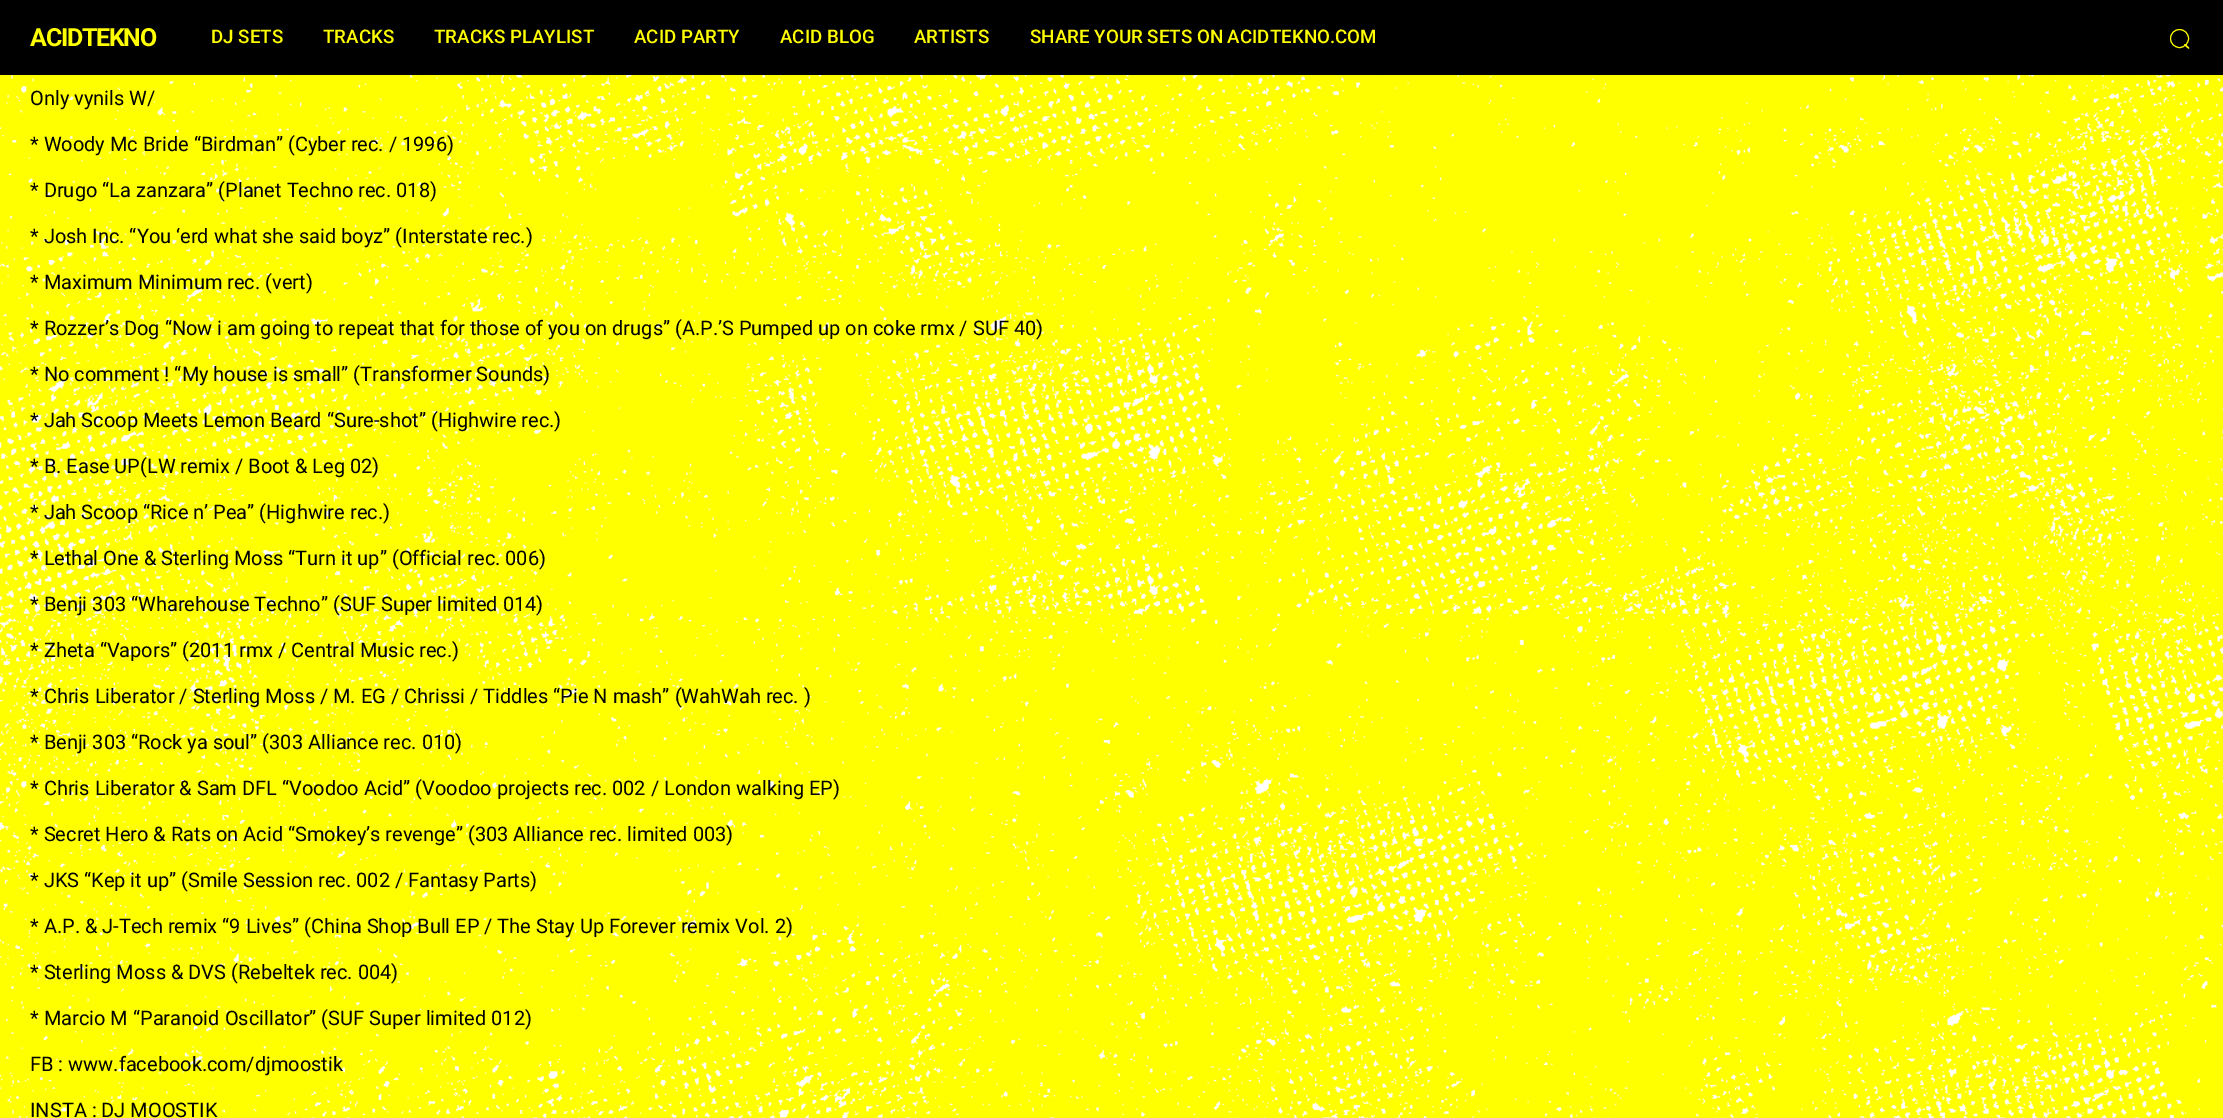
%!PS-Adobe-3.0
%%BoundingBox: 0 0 2223 1118
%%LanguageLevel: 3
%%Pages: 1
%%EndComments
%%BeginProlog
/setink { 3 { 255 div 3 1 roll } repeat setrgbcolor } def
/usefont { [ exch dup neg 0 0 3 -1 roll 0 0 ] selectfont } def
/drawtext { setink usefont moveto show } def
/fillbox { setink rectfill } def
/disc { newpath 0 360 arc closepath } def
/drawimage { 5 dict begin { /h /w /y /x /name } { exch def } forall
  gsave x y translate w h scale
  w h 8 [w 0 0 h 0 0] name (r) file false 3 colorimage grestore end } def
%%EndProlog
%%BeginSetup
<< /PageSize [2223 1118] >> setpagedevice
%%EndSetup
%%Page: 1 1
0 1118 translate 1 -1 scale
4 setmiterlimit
0 0 2223 1118 255 255 0 fillbox
(assets/img1.rgb) 0 75 2223 1043 drawimage
0 0 2223 75 0 0 0 fillbox
/Roboto-Bold 25 usefont
255 255 0 setink
30 46 moveto -1.25 0 (ACIDTEKNO) ashow
(DJ SETS) 211 43 /Roboto-Medium 18.75 255 255 0 drawtext
(TRACKS) 323 43 /Roboto-Medium 18.75 255 255 0 drawtext
(TRACKS PLAYLIST) 434 43 /Roboto-Medium 18.75 255 255 0 drawtext
(ACID PARTY) 634 43 /Roboto-Medium 18.75 255 255 0 drawtext
(ACID BLOG) 780 43 /Roboto-Medium 18.75 255 255 0 drawtext
(ARTISTS) 914 43 /Roboto-Medium 18.75 255 255 0 drawtext
(SHARE YOUR SETS ON ACIDTEKNO.COM) 1030 43 /Roboto-Medium 18.75 255 255 0 drawtext
2179.5 38.5 9 disc stroke
2185.5 44 moveto 2188.5 47 lineto 2190 48.5 2189 49.5 2187.5 48 curveto 2187 47.5 2183.5 45 2184.5 44 curveto closepath fill
(Only vynils W/) 30 105 /Roboto-Regular 20 0 0 0 drawtext
(* Woody Mc Bride “Birdman” \(Cyber rec. / 1996\)) 30 151 /Roboto-Regular 20 0 0 0 drawtext
(* Drugo “La zanzara” \(Planet Techno rec. 018\)) 30 197 /Roboto-Regular 20 0 0 0 drawtext
(* Josh Inc. “You ‘erd what she said boyz” \(Interstate rec.\)) 30 243 /Roboto-Regular 20 0 0 0 drawtext
(* Maximum Minimum rec. \(vert\)) 30 289 /Roboto-Regular 20 0 0 0 drawtext
(* Rozzer’s Dog “Now i am going to repeat that for those of you on drugs” \(A.P.’S Pumped up on coke rmx / SUF 40\)) 30 335 /Roboto-Regular 20 0 0 0 drawtext
(* No comment ! “My house is small” \(Transformer Sounds\)) 30 381 /Roboto-Regular 20 0 0 0 drawtext
(* Jah Scoop Meets Lemon Beard “Sure-shot” \(Highwire rec.\)) 30 427 /Roboto-Regular 20 0 0 0 drawtext
(* B. Ease UP\(LW remix / Boot & Leg 02\)) 30 473 /Roboto-Regular 20 0 0 0 drawtext
(* Jah Scoop “Rice n’ Pea” \(Highwire rec.\)) 30 519 /Roboto-Regular 20 0 0 0 drawtext
(* Lethal One & Sterling Moss “Turn it up” \(Official rec. 006\)) 30 565 /Roboto-Regular 20 0 0 0 drawtext
(* Benji 303 “Wharehouse Techno” \(SUF Super limited 014\)) 30 611 /Roboto-Regular 20 0 0 0 drawtext
(* Zheta “Vapors” \(2011 rmx / Central Music rec.\)) 30 657 /Roboto-Regular 20 0 0 0 drawtext
(* Chris Liberator / Sterling Moss / M. EG / Chrissi / Tiddles “Pie N mash” \(WahWah rec. \)) 30 703 /Roboto-Regular 20 0 0 0 drawtext
(* Benji 303 “Rock ya soul” \(303 Alliance rec. 010\)) 30 749 /Roboto-Regular 20 0 0 0 drawtext
(* Chris Liberator & Sam DFL “Voodoo Acid” \(Voodoo projects rec. 002 / London walking EP\)) 30 795 /Roboto-Regular 20 0 0 0 drawtext
(* Secret Hero & Rats on Acid “Smokey’s revenge” \(303 Alliance rec. limited 003\)) 30 841 /Roboto-Regular 20 0 0 0 drawtext
(* JKS “Kep it up” \(Smile Session rec. 002 / Fantasy Parts\)) 30 887 /Roboto-Regular 20 0 0 0 drawtext
(* A.P. & J-Tech remix “9 Lives” \(China Shop Bull EP / The Stay Up Forever remix Vol. 2\)) 30 933 /Roboto-Regular 20 0 0 0 drawtext
(* Sterling Moss & DVS \(Rebeltek rec. 004\)) 30 979 /Roboto-Regular 20 0 0 0 drawtext
(* Marcio M “Paranoid Oscillator” \(SUF Super limited 012\)) 30 1025 /Roboto-Regular 20 0 0 0 drawtext
(FB : www.facebook.com/djmoostik) 30 1071 /Roboto-Regular 20 0 0 0 drawtext
(INSTA : DJ MOOSTIK) 30 1117 /Roboto-Regular 20 0 0 0 drawtext
showpage
%%EOF
